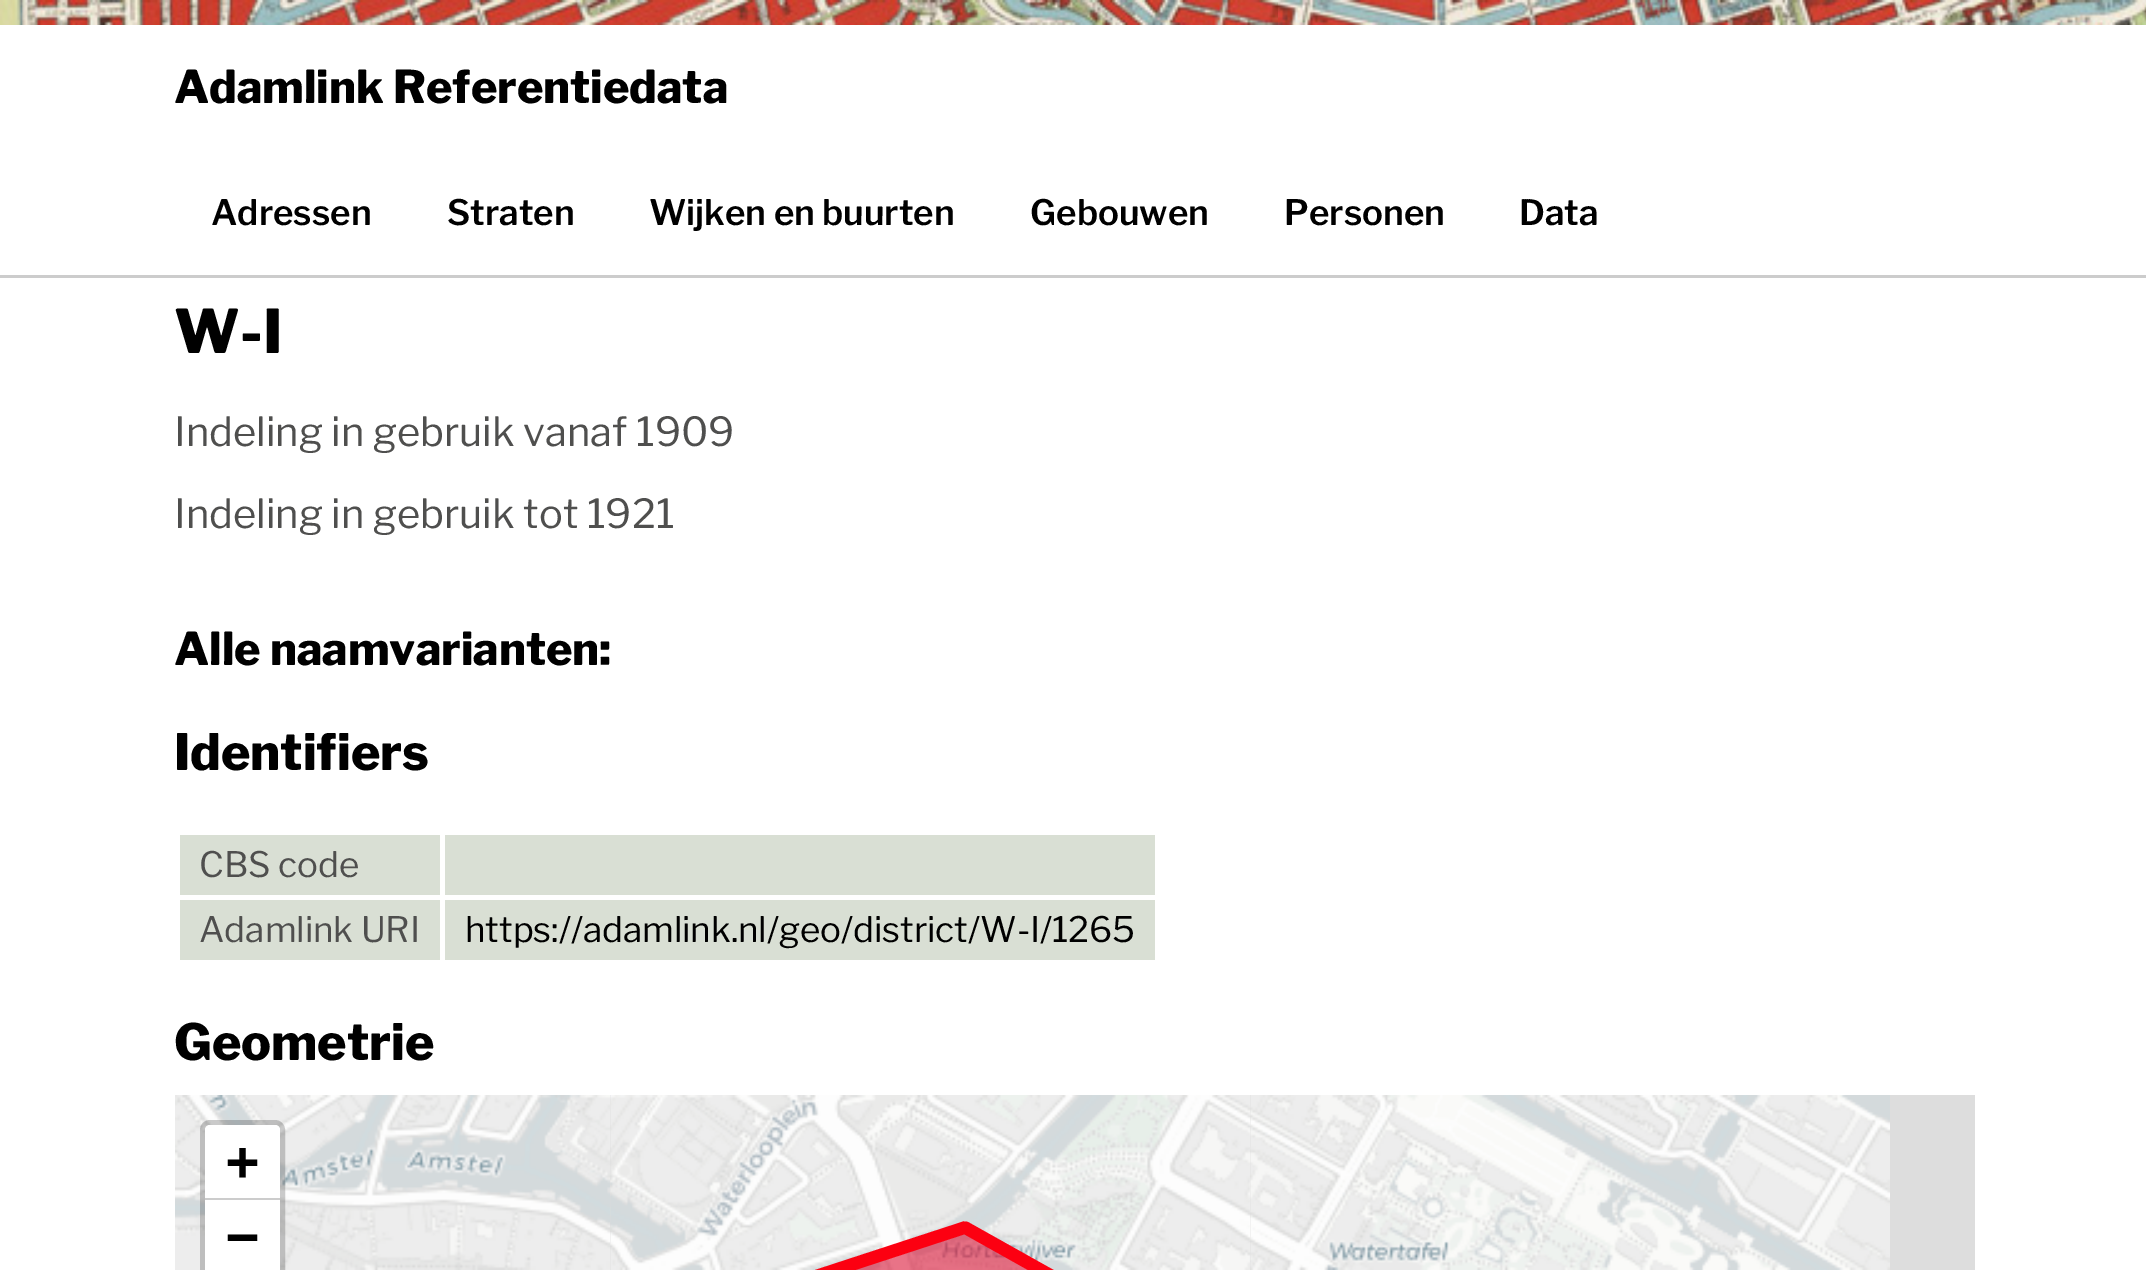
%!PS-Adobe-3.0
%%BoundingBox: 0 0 2146 1270
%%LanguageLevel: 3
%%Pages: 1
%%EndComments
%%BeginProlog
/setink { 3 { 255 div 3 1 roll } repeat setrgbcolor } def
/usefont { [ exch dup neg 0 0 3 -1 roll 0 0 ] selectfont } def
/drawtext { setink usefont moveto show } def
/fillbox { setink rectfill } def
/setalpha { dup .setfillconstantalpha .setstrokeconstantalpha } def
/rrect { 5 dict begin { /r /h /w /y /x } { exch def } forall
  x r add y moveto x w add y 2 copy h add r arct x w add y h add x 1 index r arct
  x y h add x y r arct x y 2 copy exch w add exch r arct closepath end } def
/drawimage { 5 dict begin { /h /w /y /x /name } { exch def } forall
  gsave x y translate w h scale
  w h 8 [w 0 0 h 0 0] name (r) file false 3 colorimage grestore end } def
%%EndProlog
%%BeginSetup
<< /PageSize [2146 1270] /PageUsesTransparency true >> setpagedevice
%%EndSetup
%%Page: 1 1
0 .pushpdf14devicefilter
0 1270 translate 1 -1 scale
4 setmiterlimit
0 0 2146 1270 255 255 255 fillbox
0 275 2146 3 204 204 204 fillbox
(assets/img1.rgb) 0 0 2146 25 drawimage
(Adamlink Referentiedata) 174 103 /LibreFranklin-ExtraBold 45 0 0 0 drawtext
(Adressen) 211 225 /LibreFranklin-SemiBold 35 0 0 0 drawtext
(Straten) 447 225 /LibreFranklin-SemiBold 35 0 0 0 drawtext
(Wijken en buurten) 649 225 /LibreFranklin-SemiBold 35 0 0 0 drawtext
(Gebouwen) 1030 225 /LibreFranklin-SemiBold 35 0 0 0 drawtext
(Personen) 1284 225 /LibreFranklin-SemiBold 35 0 0 0 drawtext
(Data) 1519 225 /LibreFranklin-SemiBold 35 0 0 0 drawtext
(W-I) 174 353 /LibreFranklin-ExtraBold 60 0 0 0 drawtext
(Indeling in gebruik vanaf 1909) 174 446 /LibreFranklin-Regular 40 79 79 78 drawtext
(Indeling in gebruik tot 1921) 174 528 /LibreFranklin-Regular 40 79 79 78 drawtext
(Alle naamvarianten:) 174 665 /LibreFranklin-ExtraBold 45 0 0 0 drawtext
(Identifiers) 174 770 /LibreFranklin-ExtraBold 50 0 0 0 drawtext
180 835 260 60 217 223 212 fillbox
(CBS code) 199 877 /LibreFranklin-Regular 35 79 79 78 drawtext
445 835 710 60 217 223 212 fillbox
180 900 260 60 217 223 212 fillbox
(Adamlink URI) 199 942 /LibreFranklin-Regular 35 79 79 78 drawtext
445 900 710 60 217 223 212 fillbox
(https://adamlink.nl/geo/district/W-I/1265) 465 942 /LibreFranklin-Regular 35 0 0 0 drawtext
(Geometrie) 174 1060 /LibreFranklin-ExtraBold 50 0 0 0 drawtext
610 1095 1365 175 221 221 221 fillbox
(assets/img2.rgb) 175 1095 435 175 drawimage
(assets/img3.rgb) 610 1095 640 175 drawimage
(assets/img4.rgb) 1249 1095 641 175 drawimage
0.2 setalpha
51 136 255 setink
690 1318 moveto 965 1228 lineto 1460 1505 lineto 812 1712 lineto 722 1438 lineto closepath eofill
0.5 setalpha
252 0 17 setink
690 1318 moveto 965 1228 lineto 1460 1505 lineto 812 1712 lineto 722 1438 lineto closepath eofill
1 setalpha
12.5 setlinewidth
1 setlinecap
1 setlinejoin
690 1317.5 moveto 965 1227.5 lineto 1460 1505 lineto 812.5 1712.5 lineto 722.5 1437.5 lineto closepath stroke
0.2 setalpha
0 0 0 setink
5 setlinewidth
0 setlinecap
0 setlinejoin
202.5 1122.5 80 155 7.5 rrect stroke
1 setalpha
255 255 255 setink
210 1125 moveto 275 1125 lineto 278 1125 280 1127 280 1130 curveto 280 1200 lineto 205 1200 lineto 205 1130 lineto 205 1127 207 1125 210 1125 curveto closepath fill
205 1198 75 2 204 204 204 fillbox
(+) 226 1180 /DejaVuSansMono-Bold 55 0 0 0 drawtext
205 1200 75 70 255 255 255 fillbox
(−) 226 1255 /DejaVuSansMono-Bold 55 0 0 0 drawtext
.poppdf14devicefilter showpage
%%EOF
